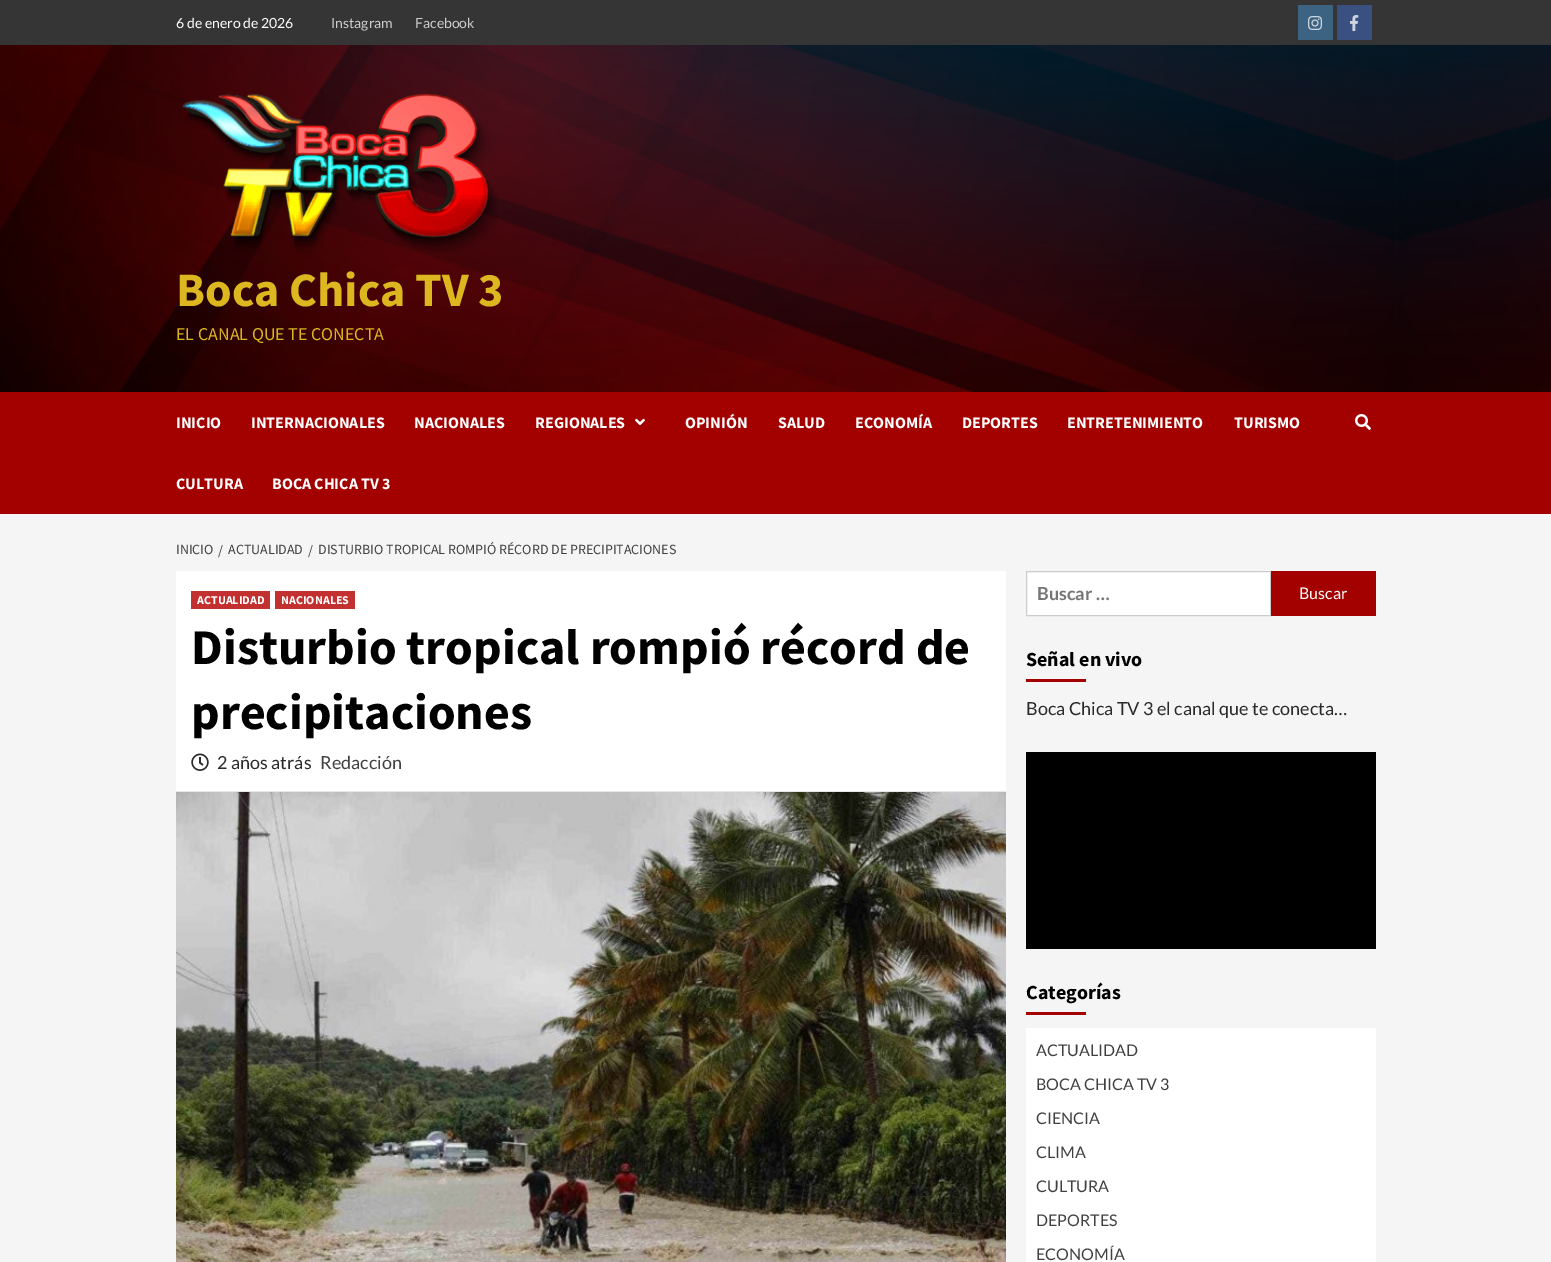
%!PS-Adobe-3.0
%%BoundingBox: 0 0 1551 1262
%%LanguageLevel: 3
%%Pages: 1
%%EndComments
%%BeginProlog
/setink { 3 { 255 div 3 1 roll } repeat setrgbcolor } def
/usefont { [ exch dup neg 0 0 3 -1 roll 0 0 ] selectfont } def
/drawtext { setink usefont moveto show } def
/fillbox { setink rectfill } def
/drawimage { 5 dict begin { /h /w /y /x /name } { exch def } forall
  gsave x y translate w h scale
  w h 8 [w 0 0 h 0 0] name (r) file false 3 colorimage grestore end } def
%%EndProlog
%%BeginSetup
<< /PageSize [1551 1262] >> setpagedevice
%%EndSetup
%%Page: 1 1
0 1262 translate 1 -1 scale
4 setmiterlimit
0 0 1551 1262 245 245 245 fillbox
0 0 1551 45 53 53 53 fillbox
(6 de enero de 2026) 176 28 /Lato-Regular 14 255 255 255 drawtext
(Instagram) 331 28 /Lato-Regular 14 205 205 205 drawtext
(Facebook) 415 28 /Lato-Regular 14 205 205 205 drawtext
1298 5 35 35 61 99 130 fillbox
(assets/img1.rgb) 1308 16 14 14 drawimage
1337 5 35 35 58 80 128 fillbox
(assets/img2.rgb) 1350 15 9 16 drawimage
(assets/img3.rgb) 0 45 1551 347 drawimage
(assets/img4.rgb) 182 93 316 161 drawimage
(Boca Chica TV 3) 176 306 /SourceSansPro-Bold 48 221 183 31 drawtext
(EL CANAL QUE TE CONECTA) 176 340 /SourceSansPro-Regular 18 221 183 31 drawtext
0 392 1551 122 163 0 0 fillbox
(INICIO) 176 428 /SourceSansPro-Bold 16 255 255 255 drawtext
(INTERNACIONALES) 251 428 /SourceSansPro-Bold 16 255 255 255 drawtext
(NACIONALES) 414 428 /SourceSansPro-Bold 16 255 255 255 drawtext
(REGIONALES) 535 428 /SourceSansPro-Bold 16 255 255 255 drawtext
(assets/img5.rgb) 635 418 10 8 drawimage
(OPINIÓN) 685 428 /SourceSansPro-Bold 16 255 255 255 drawtext
(SALUD) 778 428 /SourceSansPro-Bold 16 255 255 255 drawtext
(ECONOMÍA) 855 428 /SourceSansPro-Bold 16 255 255 255 drawtext
(DEPORTES) 962 428 /SourceSansPro-Bold 16 255 255 255 drawtext
(ENTRETENIMIENTO) 1067 428 /SourceSansPro-Bold 16 255 255 255 drawtext
(TURISMO) 1234 428 /SourceSansPro-Bold 16 255 255 255 drawtext
(CULTURA) 176 489 /SourceSansPro-Bold 16 255 255 255 drawtext
(BOCA CHICA TV 3) 272 489 /SourceSansPro-Bold 16 255 255 255 drawtext
(assets/img6.rgb) 1355 414 16 16 drawimage
(INICIO) 176 554 /SourceSansPro-Regular 14 64 64 64 drawtext
(/) 218 555 /SourceSansPro-Regular 14 64 64 64 drawtext
(ACTUALIDAD) 228 554 /SourceSansPro-Regular 14 64 64 64 drawtext
(/) 308 555 /SourceSansPro-Regular 14 64 64 64 drawtext
(DISTURBIO TROPICAL ROMPIÓ RÉCORD DE PRECIPITACIONES) 318 554 /SourceSansPro-Regular 14 64 64 64 drawtext
176 571 830 220 255 255 255 fillbox
176 791 830 1 230 230 230 fillbox
191 591 79 18 194 48 48 fillbox
(ACTUALIDAD) 197 604 /SourceSansPro-Bold 12 255 255 255 drawtext
275 591 80 18 194 48 48 fillbox
(NACIONALES) 281 604 /SourceSansPro-Bold 12 255 255 255 drawtext
(Disturbio tropical rompió récord de) 191 664 /SourceSansPro-Bold 50 0 0 0 drawtext
(precipitaciones) 191 729 /SourceSansPro-Bold 50 0 0 0 drawtext
(assets/img7.rgb) 191 753 18 18 drawimage
(2 años atrás) 217 769 /Lato-Regular 18 42 42 42 drawtext
(Redacción) 320 769 /Lato-Regular 18 64 64 64 drawtext
(assets/img8.rgb) 176 792 830 470 drawimage
255 255 255 setink
1026.5 571.5 moveto 1270.5 571.5 lineto 1270.5 615.5 lineto 1026.5 615.5 lineto closepath gsave fill grestore
204 204 204 setink
stroke
(Buscar …) 1037 600 /Lato-Bold 18 117 117 117 drawtext
1271 571 105 45 163 0 0 fillbox
(Buscar) 1299 599 /Lato-Regular 16 255 255 255 drawtext
(Señal en vivo) 1026 666 /SourceSansPro-Bold 20 0 0 0 drawtext
1026 679 60 3 163 0 0 fillbox
(Boca Chica TV 3 el canal que te conecta…) 1026 715 /Lato-Regular 18 42 42 42 drawtext
1026 752 350 197 0 0 0 fillbox
(Categorías) 1026 999 /SourceSansPro-Bold 20 0 0 0 drawtext
1026 1012 60 3 163 0 0 fillbox
1026 1028 350 234 255 255 255 fillbox
(ACTUALIDAD) 1036 1056 /Lato-Regular 16 64 64 64 drawtext
(BOCA CHICA TV 3) 1036 1090 /Lato-Regular 16 64 64 64 drawtext
(CIENCIA) 1036 1124 /Lato-Regular 16 64 64 64 drawtext
(CLIMA) 1036 1158 /Lato-Regular 16 64 64 64 drawtext
(CULTURA) 1036 1192 /Lato-Regular 16 64 64 64 drawtext
(DEPORTES) 1036 1226 /Lato-Regular 16 64 64 64 drawtext
(ECONOMÍA) 1036 1260 /Lato-Regular 16 64 64 64 drawtext
showpage
%%EOF
